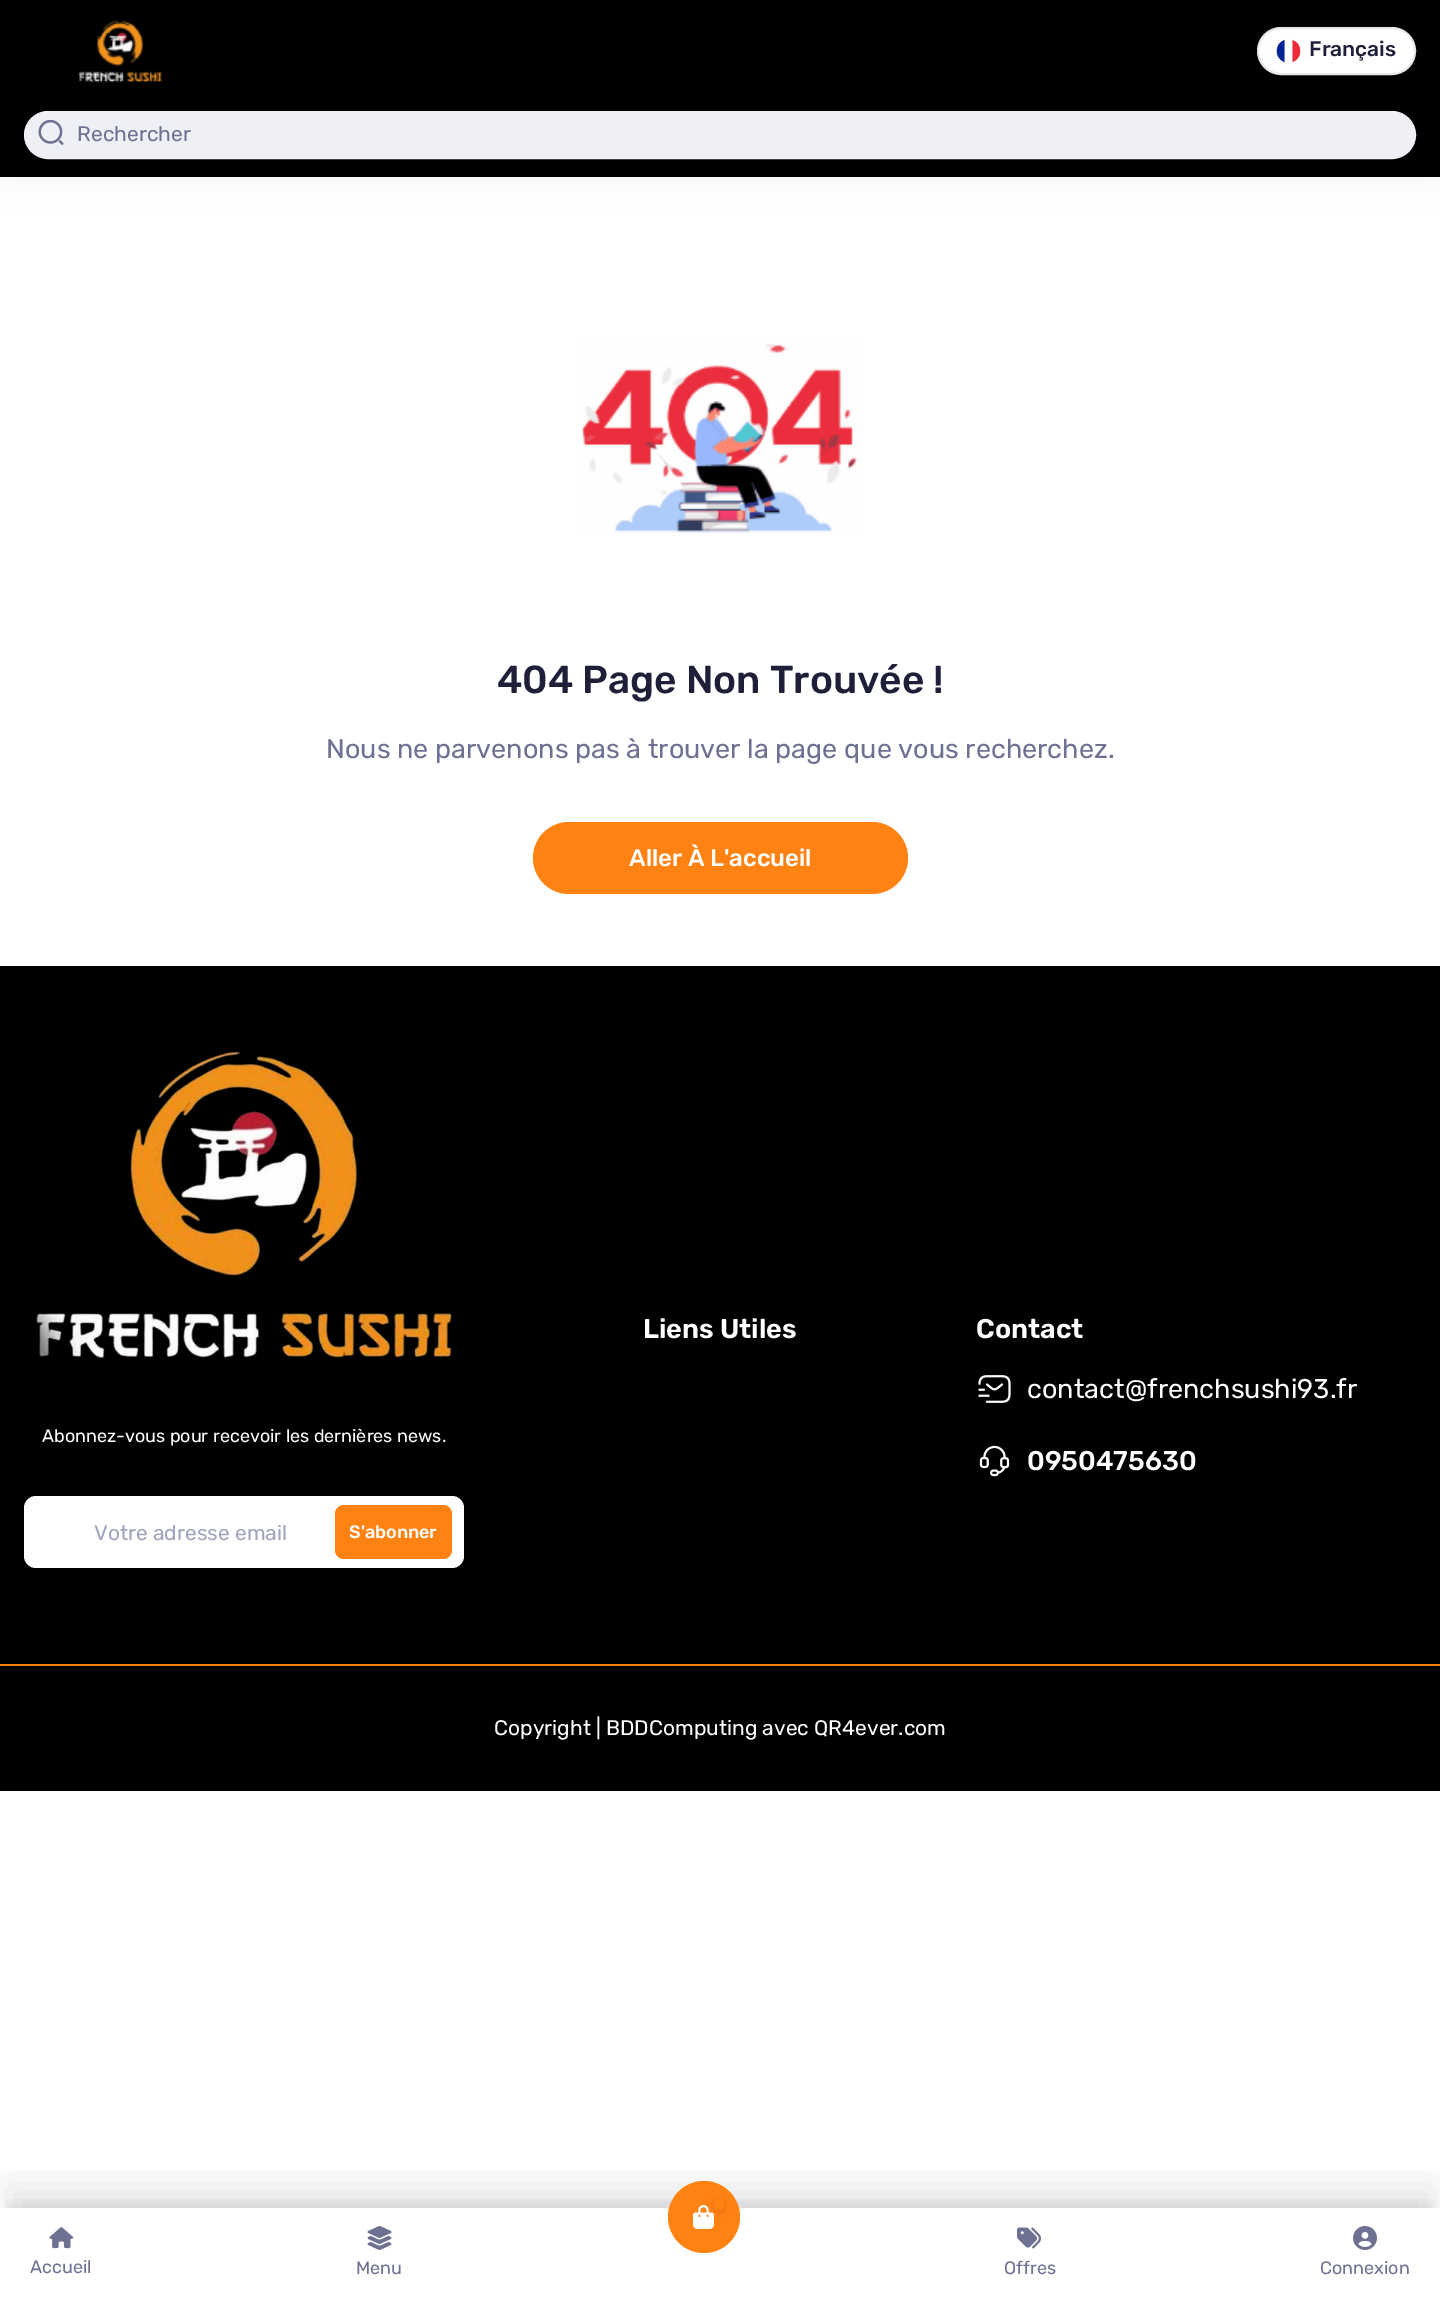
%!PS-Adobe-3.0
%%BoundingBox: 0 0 1440 2298
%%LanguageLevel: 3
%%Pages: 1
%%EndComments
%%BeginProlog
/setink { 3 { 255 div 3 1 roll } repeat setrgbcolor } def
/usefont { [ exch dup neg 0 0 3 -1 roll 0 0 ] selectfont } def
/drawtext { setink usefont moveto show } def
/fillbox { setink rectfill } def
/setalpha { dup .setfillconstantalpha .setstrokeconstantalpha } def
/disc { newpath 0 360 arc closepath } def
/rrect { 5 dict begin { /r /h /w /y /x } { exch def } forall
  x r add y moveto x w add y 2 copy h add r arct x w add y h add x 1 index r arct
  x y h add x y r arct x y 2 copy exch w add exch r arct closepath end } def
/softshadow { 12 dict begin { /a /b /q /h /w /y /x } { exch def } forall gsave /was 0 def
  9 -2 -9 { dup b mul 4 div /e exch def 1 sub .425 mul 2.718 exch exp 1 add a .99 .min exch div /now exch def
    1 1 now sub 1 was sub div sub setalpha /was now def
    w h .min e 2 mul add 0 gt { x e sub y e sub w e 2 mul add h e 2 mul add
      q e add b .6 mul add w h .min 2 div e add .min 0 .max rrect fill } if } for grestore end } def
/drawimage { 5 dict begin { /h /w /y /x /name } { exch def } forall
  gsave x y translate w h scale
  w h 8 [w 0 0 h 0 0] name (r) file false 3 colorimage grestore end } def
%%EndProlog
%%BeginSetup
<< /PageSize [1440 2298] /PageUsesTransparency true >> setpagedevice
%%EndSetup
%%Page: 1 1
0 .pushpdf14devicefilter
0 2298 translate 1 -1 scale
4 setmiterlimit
0 0 1440 2298 255 255 255 fillbox
0 0 0 setink
0 9 1440 177 0 24 0.04 softshadow
0 0 1440 177 0 0 0 fillbox
(assets/img1.rgb) 78 19 85 64 drawimage
255 255 255 setink
1258 28 157 46 23 rrect gsave fill grestore
229 231 235 setink
2 setlinewidth
stroke
(assets/img2.rgb) 1276 39 25 24 drawimage
(Français) 1309 56 /Rubik-Medium 21 31 31 57 drawtext
239 240 246 setink
25 112 1390 46 23 rrect gsave fill grestore
stroke
(assets/img3.rgb) 38 119 26 26 drawimage
(Rechercher) 77 141 /Rubik-Regular 21 110 113 145 drawtext
(assets/img4.rgb) 582 343 276 190 drawimage
(404 Page Non Trouvée !) 497 693 /Rubik-Medium 39 31 31 57 drawtext
(Nous ne parvenons pas à trouver la page que vous recherchez.) 326 758 /Rubik-Regular 27 110 113 145 drawtext
255 130 19 setink
533 822 375 72 36 rrect fill
(Aller À L'accueil) 629 866 /Rubik-Medium 24 255 255 255 drawtext
0 966 1440 825 0 0 0 fillbox
(Liens Utiles) 643 1338 /Rubik-SemiBold 27 255 255 255 drawtext
(Contact) 976 1338 /Rubik-SemiBold 27 255 255 255 drawtext
(assets/img5.rgb) 978 1375 33 28 drawimage
(contact@frenchsushi93.fr) 1027 1398 /Rubik-Regular 27 255 255 255 drawtext
(assets/img6.rgb) 979 1445 31 32 drawimage
(0950475630) 1027 1470 /Rubik-Medium 27 255 255 255 drawtext
(assets/img7.rgb) 36 1051 416 308 drawimage
(Abonnez-vous pour recevoir les dernières news.) 42 1442 /Rubik-Regular 18 255 255 255 drawtext
24 1496 440 72 12 rrect fill
(Votre adresse email) 94 1540 /Rubik-Regular 21 160 163 189 drawtext
255 130 19 setink
335 1505 117 54 9 rrect fill
(S'abonner) 349 1538 /Rubik-Medium 18 255 255 255 drawtext
0 1664 1440 2 255 130 19 fillbox
(Copyright | BDDComputing avec QR4ever.com) 494 1735 /Rubik-Regular 21 255 255 255 drawtext
gsave
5 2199 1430 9 rectclip
0 0 0 setink
9 2205 1422 72 0 7.5 0.1 softshadow
grestore
gsave
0 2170 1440 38 rectclip
0 0 0 setink
8 2186 1425 75 0 19 0.1 softshadow
grestore
255 130 19 setink
704 2217 36 disc fill
(assets/img8.rgb) 693 2205 21 24 drawimage
gsave
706 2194 moveto 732 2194 lineto 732 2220 lineto 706 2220 lineto closepath 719 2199 moveto 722.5 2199 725 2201.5 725 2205 curveto 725 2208.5 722.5 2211 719 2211 curveto 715.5 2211 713 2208.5 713 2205 curveto 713 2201.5 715.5 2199 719 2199 curveto closepath eoclip newpath
0 0 0 setink
713 2201 12 12 6 2 0.1 softshadow
grestore
(assets/img9.rgb) 49 2227 25 22 drawimage
(Accueil) 30 2273 /Rubik-Regular 18 110 113 145 drawtext
(assets/img10.rgb) 367 2226 25 24 drawimage
(Menu) 356 2274 /Rubik-Regular 18 110 113 145 drawtext
(assets/img11.rgb) 1017 2227 24 22 drawimage
(Offres) 1004 2274 /Rubik-Regular 18 110 113 145 drawtext
(assets/img12.rgb) 1353 2226 24 24 drawimage
(Connexion) 1320 2274 /Rubik-Regular 18 110 113 145 drawtext
.poppdf14devicefilter showpage
%%EOF
